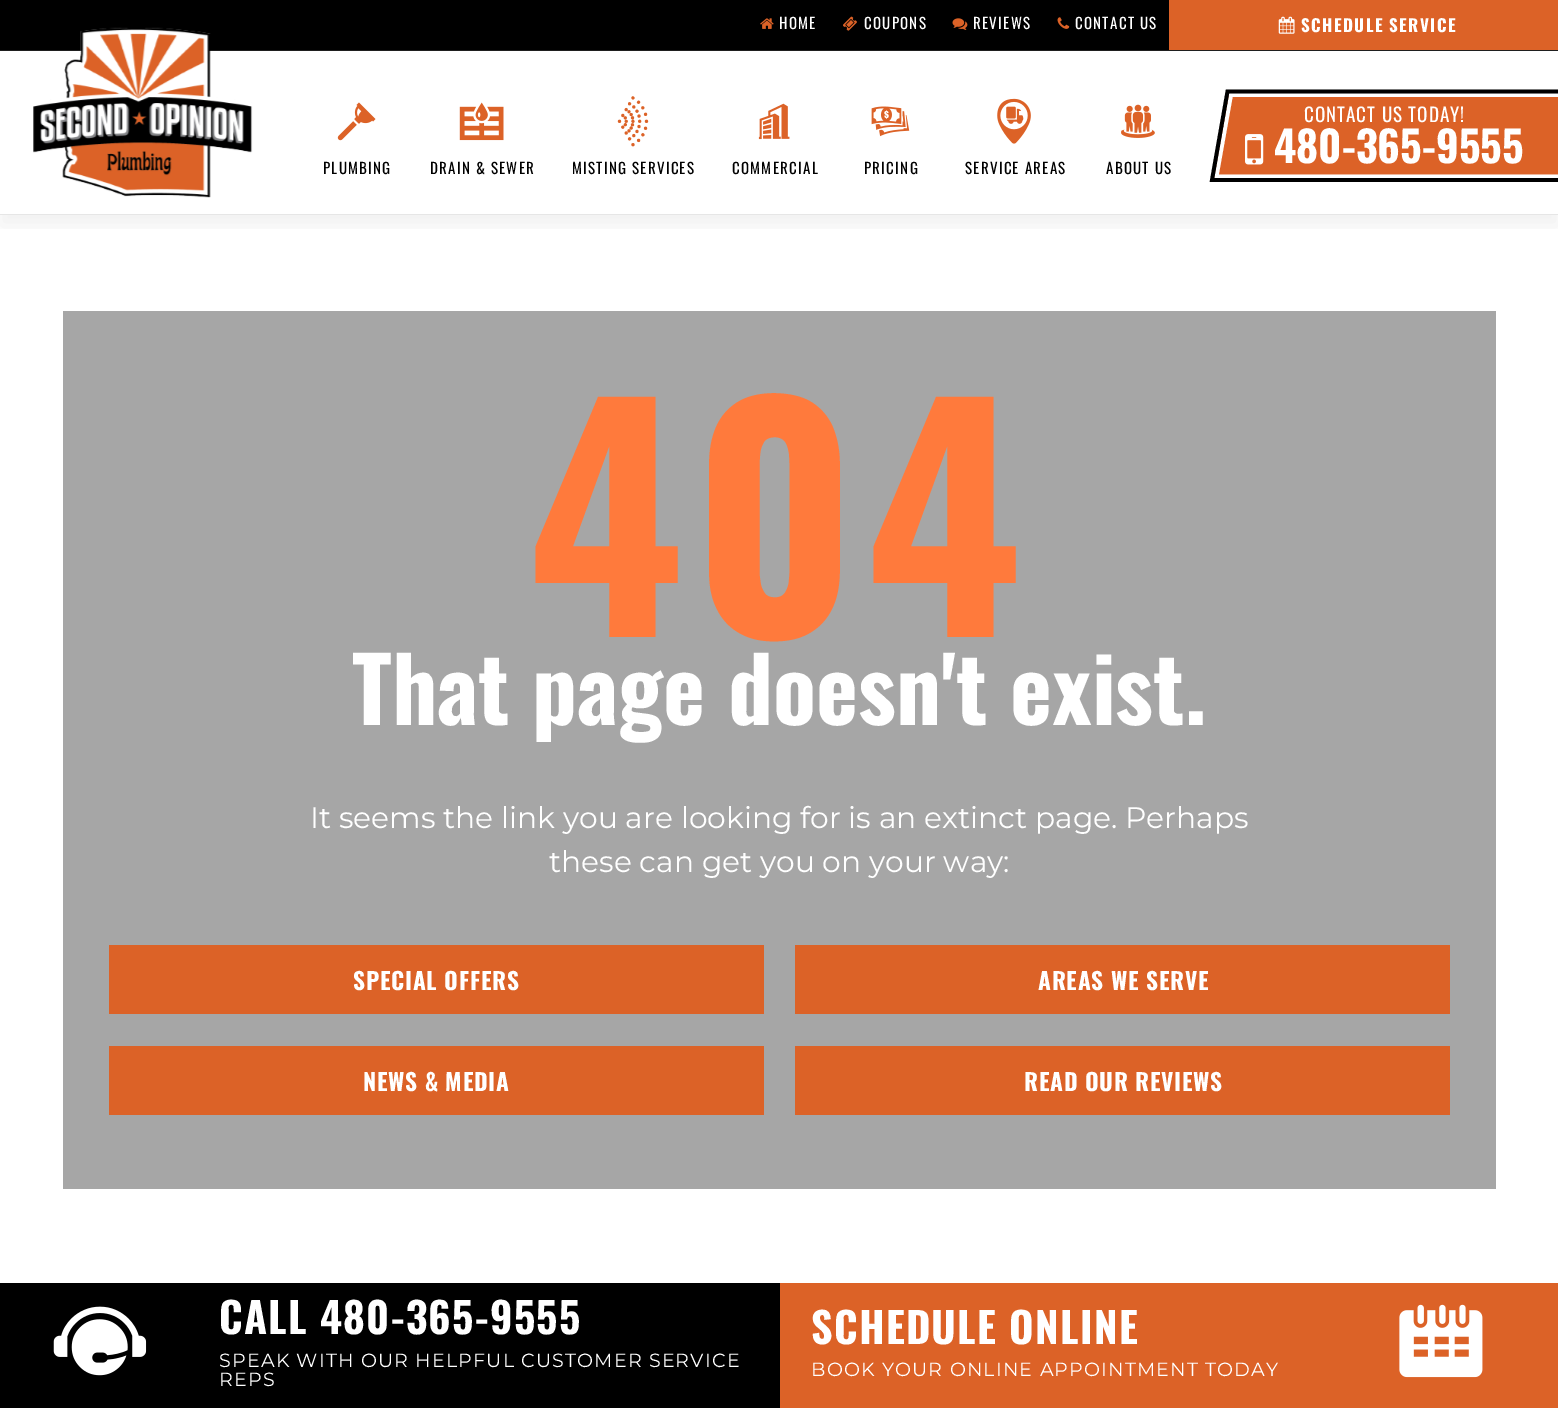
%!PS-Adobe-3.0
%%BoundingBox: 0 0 1558 1408
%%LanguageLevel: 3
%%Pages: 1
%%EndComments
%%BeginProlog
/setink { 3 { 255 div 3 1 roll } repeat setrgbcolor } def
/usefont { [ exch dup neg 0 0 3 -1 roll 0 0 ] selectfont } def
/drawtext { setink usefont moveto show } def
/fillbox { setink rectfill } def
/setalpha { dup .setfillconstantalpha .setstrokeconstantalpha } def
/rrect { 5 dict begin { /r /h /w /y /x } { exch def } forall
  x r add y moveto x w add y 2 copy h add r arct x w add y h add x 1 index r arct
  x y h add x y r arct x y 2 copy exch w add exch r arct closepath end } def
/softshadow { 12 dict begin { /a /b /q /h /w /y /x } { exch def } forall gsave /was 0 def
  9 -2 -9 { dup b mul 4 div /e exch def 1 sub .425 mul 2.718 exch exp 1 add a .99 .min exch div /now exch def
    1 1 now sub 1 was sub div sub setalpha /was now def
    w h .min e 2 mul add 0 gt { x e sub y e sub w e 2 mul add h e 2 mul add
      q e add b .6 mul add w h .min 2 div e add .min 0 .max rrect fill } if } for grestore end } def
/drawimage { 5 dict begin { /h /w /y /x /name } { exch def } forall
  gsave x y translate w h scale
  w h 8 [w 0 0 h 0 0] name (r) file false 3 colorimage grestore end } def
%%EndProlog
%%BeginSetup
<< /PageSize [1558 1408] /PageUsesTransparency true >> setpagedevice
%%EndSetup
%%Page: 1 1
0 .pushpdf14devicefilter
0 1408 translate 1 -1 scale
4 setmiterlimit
0 0 1558 1408 255 255 255 fillbox
gsave
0 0 moveto 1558 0 lineto 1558 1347 lineto 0 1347 lineto closepath 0 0 moveto 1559 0 lineto 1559 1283 lineto 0 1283 lineto closepath eoclip newpath
224 229 255 setink
0 0 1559 1283 0 21 1 softshadow
grestore
gsave
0 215 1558 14 rectclip
0 0 0 setink
0 11 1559 215 0 10.5 0.05 softshadow
grestore
0 214 1558 1 230 230 230 fillbox
0 0 1169 50 0 0 0 fillbox
0 50 1558 1 31 31 31 fillbox
(assets/img1.rgb) 760 18 14 11 drawimage
/Oswald-Regular 15 usefont
255 255 255 setink
779 29 moveto 1.25 0 (HOME) ashow
(assets/img2.rgb) 843 16 14 15 drawimage
864 29 moveto 1.25 0 (COUPONS) ashow
(assets/img3.rgb) 952 18 16 12 drawimage
973 29 moveto 1.25 0 (REVIEWS) ashow
(assets/img4.rgb) 1057 17 13 12 drawimage
1075 29 moveto 1.25 0 (CONTACT US) ashow
1169 0 389 50 220 98 39 fillbox
(assets/img5.rgb) 1278 16 17 18 drawimage
/Oswald-Bold 17 usefont
255 255 255 setink
1301 32 moveto 1.4 0 (SCHEDULE SERVICE) ashow
(assets/img6.rgb) 33 27 220 171 drawimage
220 98 39 setink
1229 93 moveto 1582 93 lineto 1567 178 lineto 1214 178 lineto closepath fill
255 255 255 setink
3.8 setlinewidth
1231 95 moveto 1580 95 lineto 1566 176.5 lineto 1216.5 176.5 lineto closepath stroke
0 0 0 setink
1227.5 91.5 moveto 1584.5 91.5 lineto 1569 180 lineto 1212 180 lineto closepath stroke
/Oswald-Regular 19.1 usefont
255 255 255 setink
1304 122 moveto 1 0 (CONTACT US TODAY!) ashow
(assets/img7.rgb) 1245 134 19 31 drawimage
(480-365-9555) 1274 163 /Oswald-Bold 42.5 255 255 255 drawtext
(assets/img8.rgb) 337 102 39 39 drawimage
/Oswald-Regular 15 usefont
0 0 0 setink
323 174 moveto 1.25 0 (PLUMBING) ashow
(assets/img9.rgb) 459 102 45 39 drawimage
430 174 moveto 1.25 0 (DRAIN & SEWER) ashow
(assets/img10.rgb) 617 96 32 51 drawimage
572 174 moveto 1.25 0 (MISTING SERVICES) ashow
(assets/img11.rgb) 758 103 32 37 drawimage
732 174 moveto 1.25 0 (COMMERCIAL) ashow
(assets/img12.rgb) 871 106 39 31 drawimage
864 174 moveto 1.25 0 (PRICING) ashow
(assets/img13.rgb) 997 98 34 46 drawimage
965 174 moveto 1.25 0 (SERVICE AREAS) ashow
(assets/img14.rgb) 1121 104 34 34 drawimage
1106 174 moveto 1.25 0 (ABOUT US) ashow
63 311 1433 878 166 166 166 fillbox
/Oswald-Bold 298 usefont
255 122 60 setink
528 637 moveto 9 0 (404) ashow
(That page doesn't exist.) 352 725 /Oswald-Bold 89.25 255 255 255 drawtext
(It seems the link you are looking for is an extinct page. Perhaps) 310 828 /Montserrat-Thin 29.75 255 255 255 drawtext
(these can get you on your way:) 549 872 /Montserrat-Thin 29.75 255 255 255 drawtext
109 945 655 69 220 98 39 fillbox
/Oswald-Bold 23.4 usefont
255 255 255 setink
353 990 moveto 0.75 0 (SPECIAL OFFERS) ashow
795 945 655 69 220 98 39 fillbox
255 255 255 setink
1038 990 moveto 0.75 0 (AREAS WE SERVE) ashow
109 1046 655 69 220 98 39 fillbox
255 255 255 setink
363 1091 moveto 0.75 0 (NEWS & MEDIA) ashow
795 1046 655 69 220 98 39 fillbox
255 255 255 setink
1024 1091 moveto 0.75 0 (READ OUR REVIEWS) ashow
0 1283 780 125 0 0 0 fillbox
(assets/img15.rgb) 53 1306 94 70 drawimage
/Oswald-Bold 42 usefont
255 255 255 setink
219 1334 moveto 1.25 0 (CALL 480-365-9555) ashow
/Montserrat-Thin 19.1 usefont
219 1367 moveto 1.15 0 (SPEAK WITH OUR HELPFUL CUSTOMER SERVICE) ashow
219 1386 moveto 1.15 0 (REPS) ashow
780 1283 778 125 220 98 39 fillbox
/Oswald-Bold 42 usefont
255 255 255 setink
811 1344 moveto 1.25 0 (SCHEDULE ONLINE) ashow
/Montserrat-Thin 19.1 usefont
811 1376 moveto 1.15 0 (BOOK YOUR ONLINE APPOINTMENT TODAY) ashow
(assets/img16.rgb) 1399 1304 84 74 drawimage
.poppdf14devicefilter showpage
%%EOF
